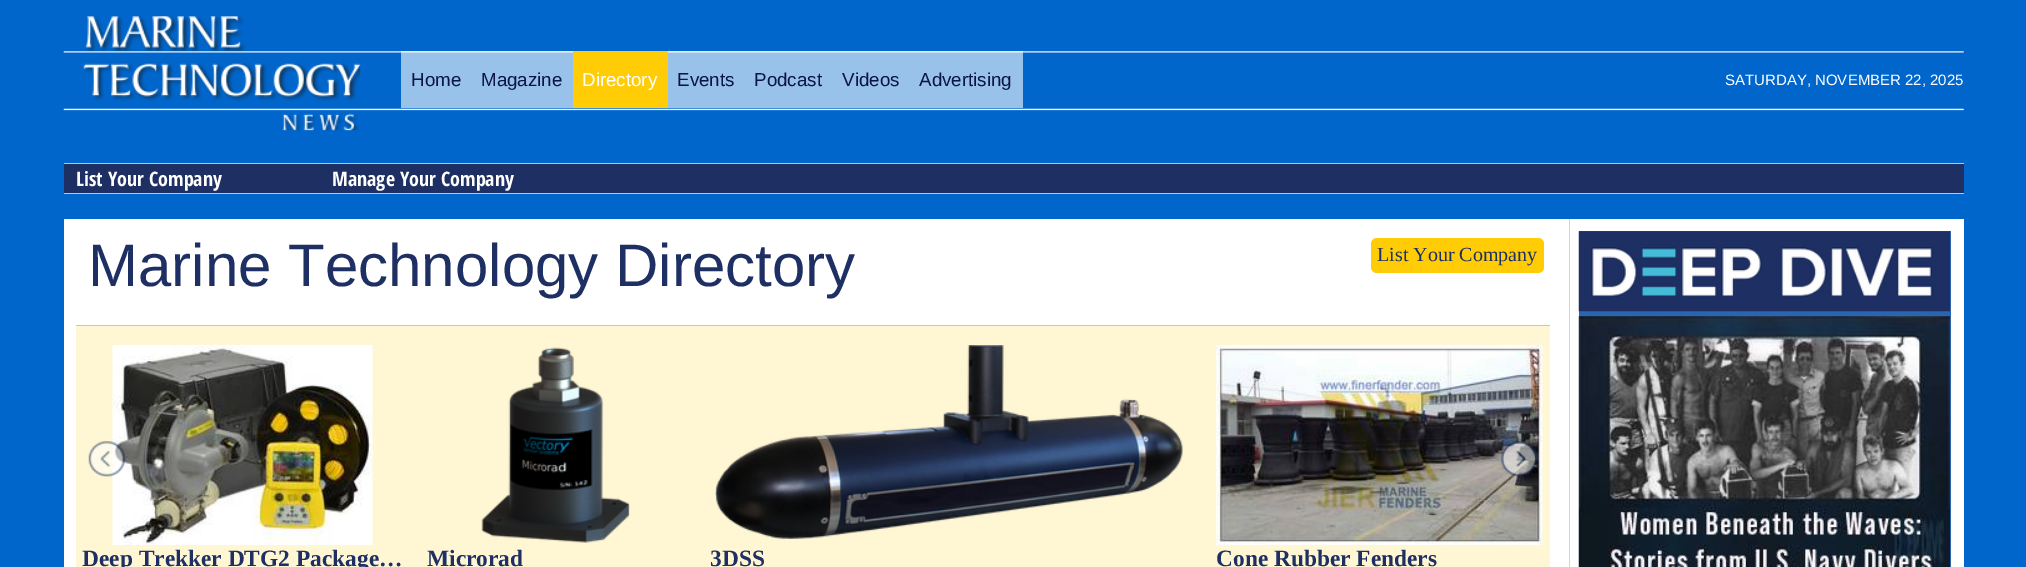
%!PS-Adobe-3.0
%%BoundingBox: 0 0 2026 567
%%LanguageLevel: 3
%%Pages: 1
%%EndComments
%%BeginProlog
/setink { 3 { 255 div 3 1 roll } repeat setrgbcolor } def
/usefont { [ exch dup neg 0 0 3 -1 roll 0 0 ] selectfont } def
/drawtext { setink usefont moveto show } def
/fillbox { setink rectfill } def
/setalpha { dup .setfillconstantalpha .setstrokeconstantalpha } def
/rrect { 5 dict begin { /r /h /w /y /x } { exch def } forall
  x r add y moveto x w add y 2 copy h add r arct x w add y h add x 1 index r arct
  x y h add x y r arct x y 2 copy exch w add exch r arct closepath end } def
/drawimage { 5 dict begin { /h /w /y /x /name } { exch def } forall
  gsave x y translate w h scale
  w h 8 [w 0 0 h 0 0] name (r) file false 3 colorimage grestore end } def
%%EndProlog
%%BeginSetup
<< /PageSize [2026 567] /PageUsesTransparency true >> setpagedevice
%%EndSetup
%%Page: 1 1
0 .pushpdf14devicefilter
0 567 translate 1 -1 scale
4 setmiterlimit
0 0 2026 567 0 102 204 fillbox
(assets/img1.rgb) 63 16 1901 115 drawimage
0.6 setalpha
401 51 70 57 255 255 255 fillbox
1 setalpha
(Home) 411 86 /LiberationSans-Regular 18.75 9 20 71 drawtext
0.6 setalpha
471 51 102 57 255 255 255 fillbox
1 setalpha
(Magazine) 481 86 /LiberationSans-Regular 18.75 9 20 71 drawtext
573 51 95 57 255 204 6 fillbox
(Directory) 582 86 /LiberationSans-Regular 18.75 255 255 255 drawtext
0.6 setalpha
668 51 76 57 255 255 255 fillbox
1 setalpha
(Events) 677 86 /LiberationSans-Regular 18.75 9 20 71 drawtext
0.6 setalpha
744 51 89 57 255 255 255 fillbox
1 setalpha
(Podcast) 754 86 /LiberationSans-Regular 18.75 9 20 71 drawtext
0.6 setalpha
833 51 77 57 255 255 255 fillbox
1 setalpha
(Videos) 842 86 /LiberationSans-Regular 18.75 9 20 71 drawtext
0.6 setalpha
910 51 113 57 255 255 255 fillbox
1 setalpha
(Advertising) 919 86 /LiberationSans-Regular 18.75 9 20 71 drawtext
(SATURDAY, NOVEMBER 22, 2025) 1725 85 /LiberationSans-Regular 15 255 255 255 drawtext
64 164 1900 29 30 47 99 fillbox
64 163 1900 1 255 204 6 fillbox
(List Your Company) 76 186 /OpenSansCondensed-Bold 20 255 255 255 drawtext
(Manage Your Company) 332 186 /OpenSansCondensed-Bold 20 255 255 255 drawtext
64 193 1900 1 255 204 6 fillbox
64 219 1900 348 255 255 255 fillbox
(Marine Technology Directory) 88 286 /LiberationSans-Regular 60 30 47 99 drawtext
255 204 6 setink
1371 238 173 35 6 rrect fill
(List Your Company) 1377 261 /LiberationSerif-Regular 20 30 47 99 drawtext
76 326 1474 241 255 246 212 fillbox
76 325 1474 1 255 204 6 fillbox
(assets/img4.rgb) 112 345 261 200 drawimage
(assets/img2.rgb) 88 441 38 36 drawimage
(assets/img7.rgb) 1216 345 327 200 drawimage
(assets/img3.rgb) 1501 441 37 36 drawimage
(Deep Trekker DTG2 Package…) 82 566 /LiberationSerif-Bold 23.4 30 47 99 drawtext
(assets/img5.rgb) 481 347 149 196 drawimage
(Microrad) 427 566 /LiberationSerif-Bold 23.4 30 47 99 drawtext
(assets/img6.rgb) 715 345 468 194 drawimage
(3DSS) 710 566 /LiberationSerif-Bold 23.4 30 47 99 drawtext
(Cone Rubber Fenders) 1216 566 /LiberationSerif-Bold 23.4 30 47 99 drawtext
1569 219 1 348 211 211 211 fillbox
1579 231 372 336 43 101 175 fillbox
(assets/img8.rgb) 1578 231 372 81 drawimage
(assets/img9.rgb) 1578 316 372 251 drawimage
.poppdf14devicefilter showpage
%%EOF
